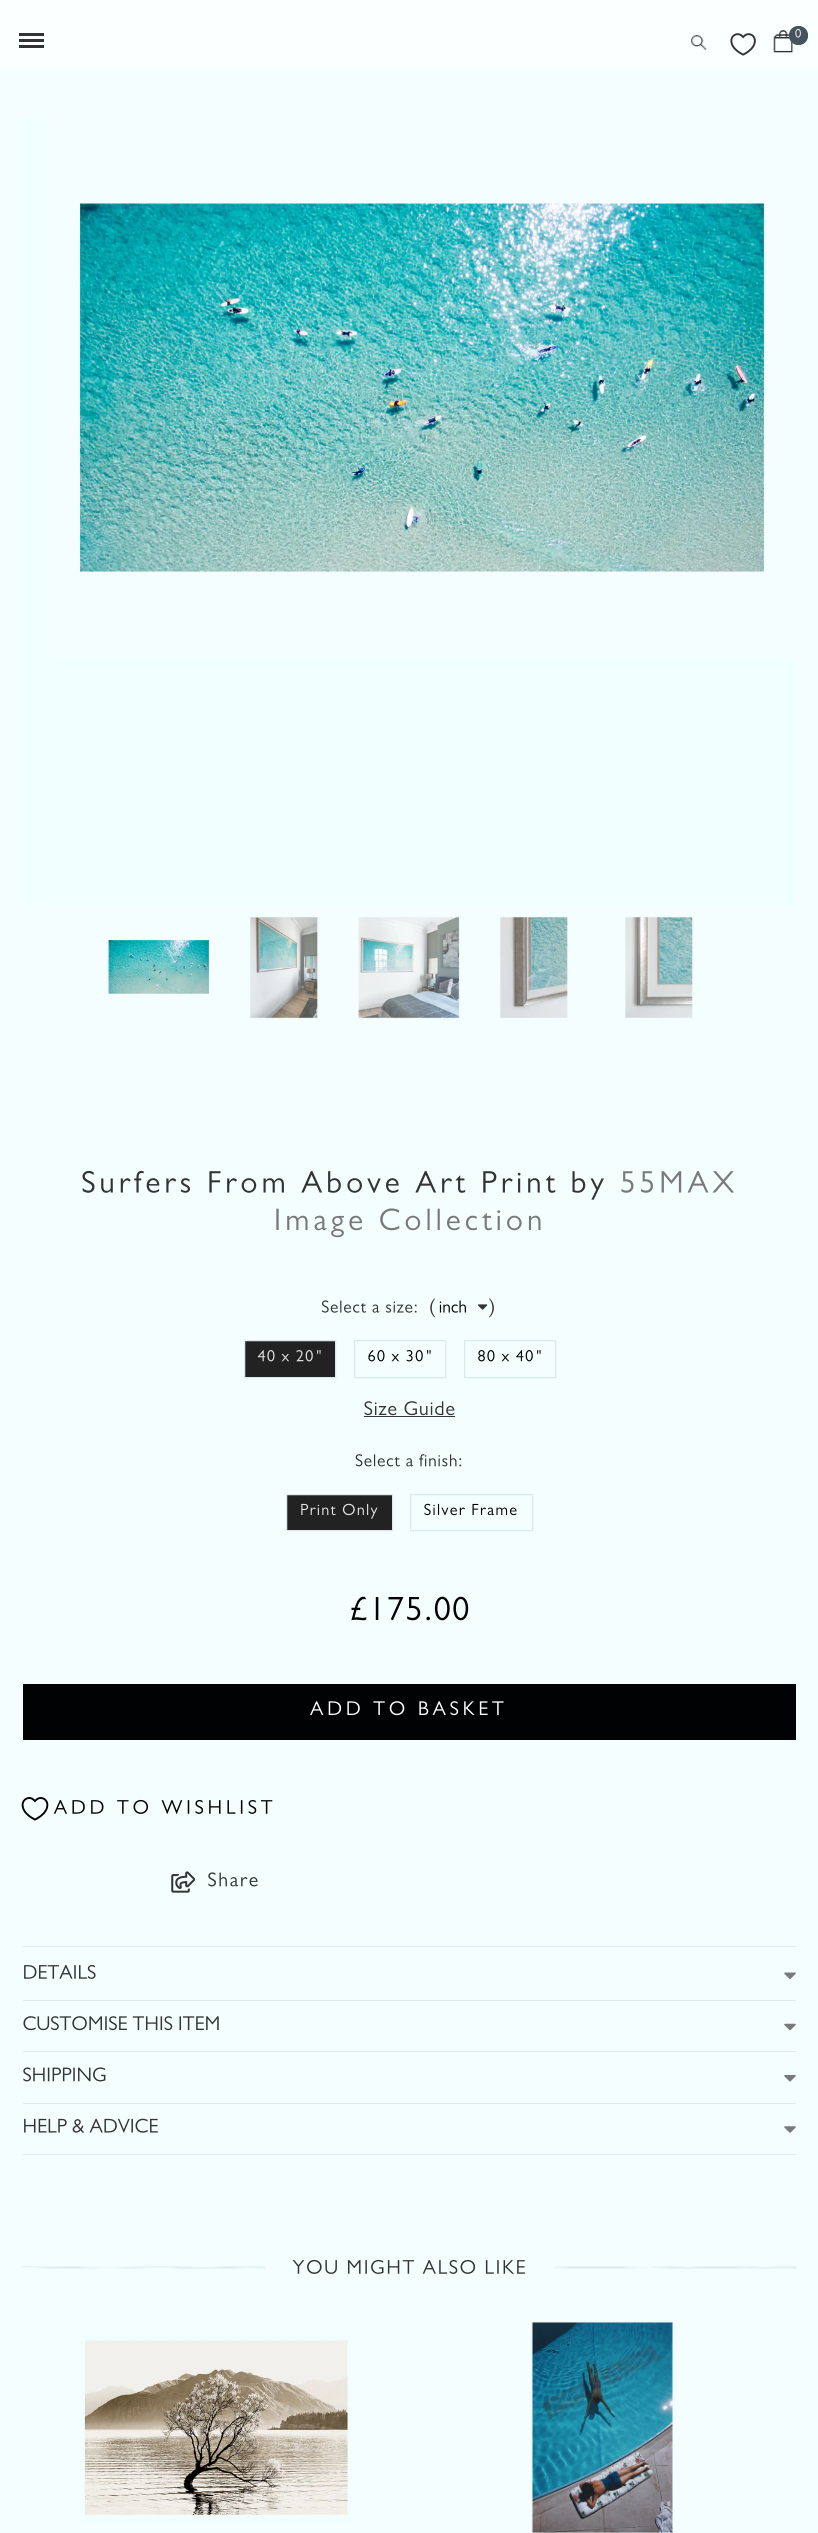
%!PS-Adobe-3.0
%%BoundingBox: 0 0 818 2533
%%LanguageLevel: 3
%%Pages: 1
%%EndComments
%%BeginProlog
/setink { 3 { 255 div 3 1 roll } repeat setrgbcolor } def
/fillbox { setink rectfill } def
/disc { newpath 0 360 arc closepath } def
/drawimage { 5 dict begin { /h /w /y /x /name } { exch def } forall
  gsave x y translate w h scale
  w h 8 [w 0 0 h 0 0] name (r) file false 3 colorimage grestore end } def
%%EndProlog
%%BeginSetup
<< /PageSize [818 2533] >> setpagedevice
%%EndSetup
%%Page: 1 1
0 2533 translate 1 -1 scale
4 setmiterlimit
0 0 818 2533 244 254 255 fillbox
0 0 818 70 250 255 255 fillbox
19 33 25 3 51 51 51 fillbox
19 45 25 3 51 51 51 fillbox
19 39 25 3 51 51 51 fillbox
(assets/img1.rgb) 691 35 16 15 drawimage
(assets/img2.rgb) 730 33 26 23 drawimage
(assets/img3.rgb) 773 30 21 23 drawimage
71 83 92 setink
798.5 35.5 9.5 disc fill
(assets/img4.rgb) 795 28 6 10 drawimage
23 118 773 787 240 255 255 fillbox
(assets/img5.rgb) 48 118 748 539 drawimage
(assets/img6.rgb) 104 938 108 57 drawimage
(assets/img7.rgb) 250 917 70 103 drawimage
(assets/img8.rgb) 358 916 103 104 drawimage
(assets/img9.rgb) 500 915 69 103 drawimage
(assets/img10.rgb) 625 915 69 104 drawimage
(assets/img11.rgb) 82 1170 474 23 drawimage
(assets/img12.rgb) 572 1171 32 29 drawimage
(assets/img13.rgb) 621 1171 113 22 drawimage
(assets/img14.rgb) 276 1208 265 30 drawimage
(assets/img15.rgb) 322 1300 95 13 drawimage
(assets/img16.rgb) 430 1298 5 20 drawimage
(assets/img17.rgb) 439 1300 27 13 drawimage
(assets/img18.rgb) 477 1304 11 6 drawimage
(assets/img19.rgb) 489 1298 5 20 drawimage
34 34 34 setink
244.5 1340.5 moveto 335.5 1340.5 lineto 335.5 1377.5 lineto 244.5 1377.5 lineto closepath gsave fill grestore
216 234 237 setink
stroke
(assets/img20.rgb) 257 1350 56 12 drawimage
(assets/img21.rgb) 317 1350 4 5 drawimage
354.5 1340.5 91 37 rectstroke
(assets/img22.rgb) 368 1350 55 12 drawimage
(assets/img23.rgb) 427 1350 4 5 drawimage
464.5 1340.5 91 37 rectstroke
(assets/img24.rgb) 478 1350 55 12 drawimage
(assets/img23.rgb) 537 1350 4 5 drawimage
(assets/img25.rgb) 364 1401 91 15 drawimage
364 1416 91 1 51 51 51 fillbox
(assets/img26.rgb) 355 1454 107 13 drawimage
34 34 34 setink
286.5 1494.5 moveto 392.5 1494.5 lineto 392.5 1530.5 lineto 286.5 1530.5 lineto closepath gsave fill grestore
216 234 237 setink
stroke
(assets/img27.rgb) 301 1503 77 16 drawimage
410.5 1494.5 122 36 rectstroke
(assets/img28.rgb) 424 1503 93 13 drawimage
(assets/img29.rgb) 351 1596 118 25 drawimage
23 1684 773 56 1 2 3 fillbox
(assets/img30.rgb) 310 1701 194 15 drawimage
(assets/img31.rgb) 21 1797 28 24 drawimage
(assets/img32.rgb) 53 1799 220 15 drawimage
(assets/img33.rgb) 171 1871 25 22 drawimage
(assets/img34.rgb) 208 1872 50 15 drawimage
23 2154 773 1 223 236 237 fillbox
23 1946 773 1 223 236 237 fillbox
(assets/img35.rgb) 24 1964 72 15 drawimage
(assets/img36.rgb) 784 1972 12 7 drawimage
23 2000 773 1 223 236 237 fillbox
(assets/img37.rgb) 23 2016 196 15 drawimage
(assets/img38.rgb) 784 2023 12 8 drawimage
23 2051 773 1 223 236 237 fillbox
(assets/img39.rgb) 23 2067 83 15 drawimage
(assets/img40.rgb) 784 2075 12 7 drawimage
23 2103 773 1 223 236 237 fillbox
(assets/img41.rgb) 24 2118 134 15 drawimage
(assets/img42.rgb) 784 2126 12 7 drawimage
(assets/img44.rgb) 22 2266 775 3 drawimage
265 2266 289 3 244 254 255 fillbox
(assets/img43.rgb) 292 2259 233 15 drawimage
(assets/img45.rgb) 82 2336 269 187 drawimage
(assets/img46.rgb) 530 2321 143 212 drawimage
showpage
%%EOF
